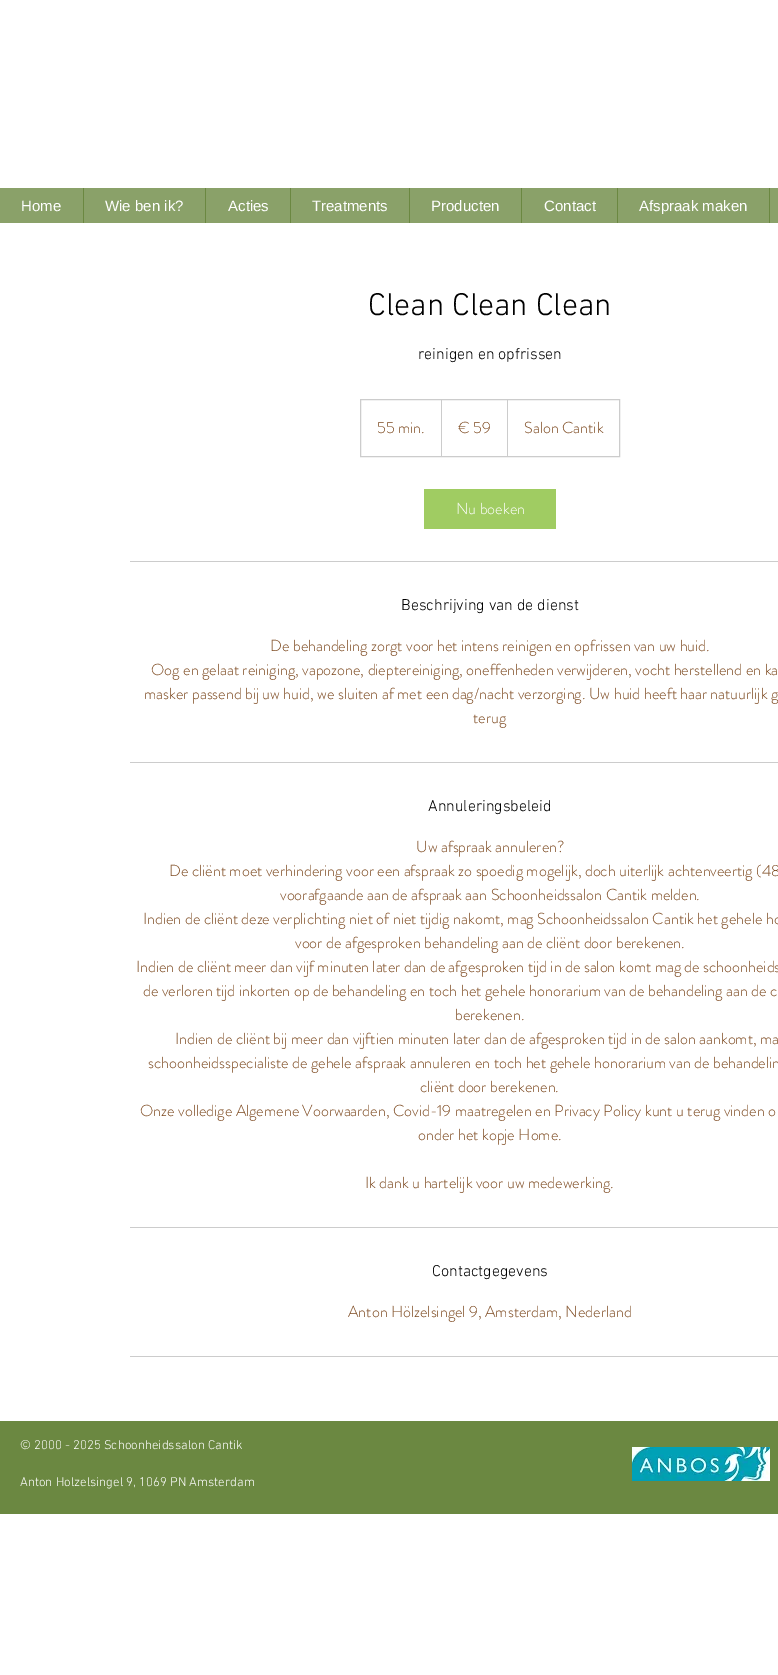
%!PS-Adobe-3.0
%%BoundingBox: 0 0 778 1675
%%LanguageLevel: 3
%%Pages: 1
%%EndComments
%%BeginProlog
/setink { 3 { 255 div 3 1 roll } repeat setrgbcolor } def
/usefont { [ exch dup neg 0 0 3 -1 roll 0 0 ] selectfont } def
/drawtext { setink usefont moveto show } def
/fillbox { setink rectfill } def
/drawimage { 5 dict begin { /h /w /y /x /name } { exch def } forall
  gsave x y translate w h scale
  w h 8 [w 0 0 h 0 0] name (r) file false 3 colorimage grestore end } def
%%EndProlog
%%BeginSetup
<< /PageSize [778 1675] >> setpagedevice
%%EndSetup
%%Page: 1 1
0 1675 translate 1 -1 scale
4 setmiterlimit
0 0 778 1675 255 255 255 fillbox
0 188 778 35 138 161 105 fillbox
(Home) 21 211 /LiberationSans-Regular 15 255 255 255 drawtext
83 188 1 35 107 136 65 fillbox
(Wie ben ik?) 105 211 /LiberationSans-Regular 15 255 255 255 drawtext
205 188 1 35 107 136 65 fillbox
(Acties) 228 211 /LiberationSans-Regular 15 255 255 255 drawtext
290 188 1 35 107 136 65 fillbox
(Treatments) 312 211 /LiberationSans-Regular 15 255 255 255 drawtext
409 188 1 35 107 136 65 fillbox
(Producten) 431 211 /LiberationSans-Regular 15 255 255 255 drawtext
521 188 1 35 107 136 65 fillbox
(Contact) 544 211 /LiberationSans-Regular 15 255 255 255 drawtext
617 188 1 35 107 136 65 fillbox
(Afspraak maken) 639 211 /LiberationSans-Regular 15 255 255 255 drawtext
769 188 1 35 107 136 65 fillbox
(Clean Clean Clean) 368 315 /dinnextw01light-Light 32 0 0 0 drawtext
(reinigen en opfrissen) 418 359 /dinnextw01light-Light 16 0 0 0 drawtext
204 204 204 setink
360.5 399.5 259 57 rectstroke
(55 min.) 377 433 /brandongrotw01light-Light 16 124 72 30 drawtext
204 204 204 setink
441 456 moveto 441 399 lineto 442 400 lineto 442 456 lineto closepath fill
(€ 59) 458 433 /brandongrotw01light-Light 16 124 72 30 drawtext
204 204 204 setink
507 456 moveto 507 399 lineto 508 400 lineto 508 456 lineto closepath fill
(Salon Cantik) 524 433 /brandongrotw01light-Light 16 124 72 30 drawtext
424 489 132 40 160 204 98 fillbox
(Nu boeken) 456 514 /brandongrotw01light-Light 16 255 255 255 drawtext
130 561 648 1 204 204 204 fillbox
(Beschrijving van de dienst) 401 610 /dinnextw01light-Light 16 0 0 0 drawtext
(De behandeling zorgt voor het intens reinigen en opfrissen van uw huid.) 270 651 /brandongrotw01light-Light 16 124 72 30 drawtext
(Oog en gelaat reiniging, vapozone, dieptereiniging, oneffenheden verwijderen, vocht herstellend en ka) 151 675 /brandongrotw01light-Light 16 124 72 30 drawtext
(masker passend bij uw huid, we sluiten af met een dag/nacht verzorging. Uw huid heeft haar natuurlijk g) 144 699 /brandongrotw01light-Light 16 124 72 30 drawtext
(terug) 473 723 /brandongrotw01light-Light 16 124 72 30 drawtext
130 762 648 1 204 204 204 fillbox
(Annuleringsbeleid) 428 811 /dinnextw01light-Light 16 0 0 0 drawtext
(Uw afspraak annuleren?) 416 852 /brandongrotw01light-Light 16 124 72 30 drawtext
(De cliënt moet verhindering voor een afspraak zo spoedig mogelijk, doch uiterlijk achtenveertig \(48) 169 876 /brandongrotw01light-Light 16 124 72 30 drawtext
(voorafgaande aan de afspraak aan Schoonheidssalon Cantik melden.) 280 900 /brandongrotw01light-Light 16 124 72 30 drawtext
(Indien de cliënt deze verplichting niet of niet tijdig nakomt, mag Schoonheidssalon Cantik het gehele ho) 143 924 /brandongrotw01light-Light 16 124 72 30 drawtext
(voor de afgesproken behandeling aan de cliënt door berekenen.) 295 948 /brandongrotw01light-Light 16 124 72 30 drawtext
(Indien de cliënt meer dan vijf minuten later dan de afgesproken tijd in de salon komt mag de schoonheids) 136 972 /brandongrotw01light-Light 16 124 72 30 drawtext
(de verloren tijd inkorten op de behandeling en toch het gehele honorarium van de behandeling aan de c) 143 996 /brandongrotw01light-Light 16 124 72 30 drawtext
(berekenen.) 455 1020 /brandongrotw01light-Light 16 124 72 30 drawtext
(Indien de cliënt bij meer dan vijftien minuten later dan de afgesproken tijd in de salon aankomt, ma) 175 1044 /brandongrotw01light-Light 16 124 72 30 drawtext
(schoonheidsspecialiste de gehele afspraak annuleren en toch het gehele honorarium van de behandelin) 148 1068 /brandongrotw01light-Light 16 124 72 30 drawtext
(cliënt door berekenen.) 420 1092 /brandongrotw01light-Light 16 124 72 30 drawtext
(Onze volledige Algemene Voorwaarden, Covid-19 maatregelen en Privacy Policy kunt u terug vinden o) 140 1116 /brandongrotw01light-Light 16 124 72 30 drawtext
(onder het kopje Home.) 418 1140 /brandongrotw01light-Light 16 124 72 30 drawtext
(Ik dank u hartelijk voor uw medewerking.) 365 1188 /brandongrotw01light-Light 16 124 72 30 drawtext
130 1227 648 1 204 204 204 fillbox
(Contactgegevens) 432 1276 /dinnextw01light-Light 16 0 0 0 drawtext
(Anton Hölzelsingel 9, Amsterdam, Nederland) 348 1317 /brandongrotw01light-Light 16 124 72 30 drawtext
130 1356 648 1 204 204 204 fillbox
0 1421 778 93 107 136 65 fillbox
(© 2000 - 2025 Schoonheidssalon Cantik) 20 1449 /dinnextw01light-Light 13 255 255 255 drawtext
(Anton Holzelsingel 9, 1069 PN Amsterdam) 20 1486 /dinnextw01light-Light 13 255 255 255 drawtext
(assets/img1.rgb) 632 1447 138 34 drawimage
showpage
%%EOF
